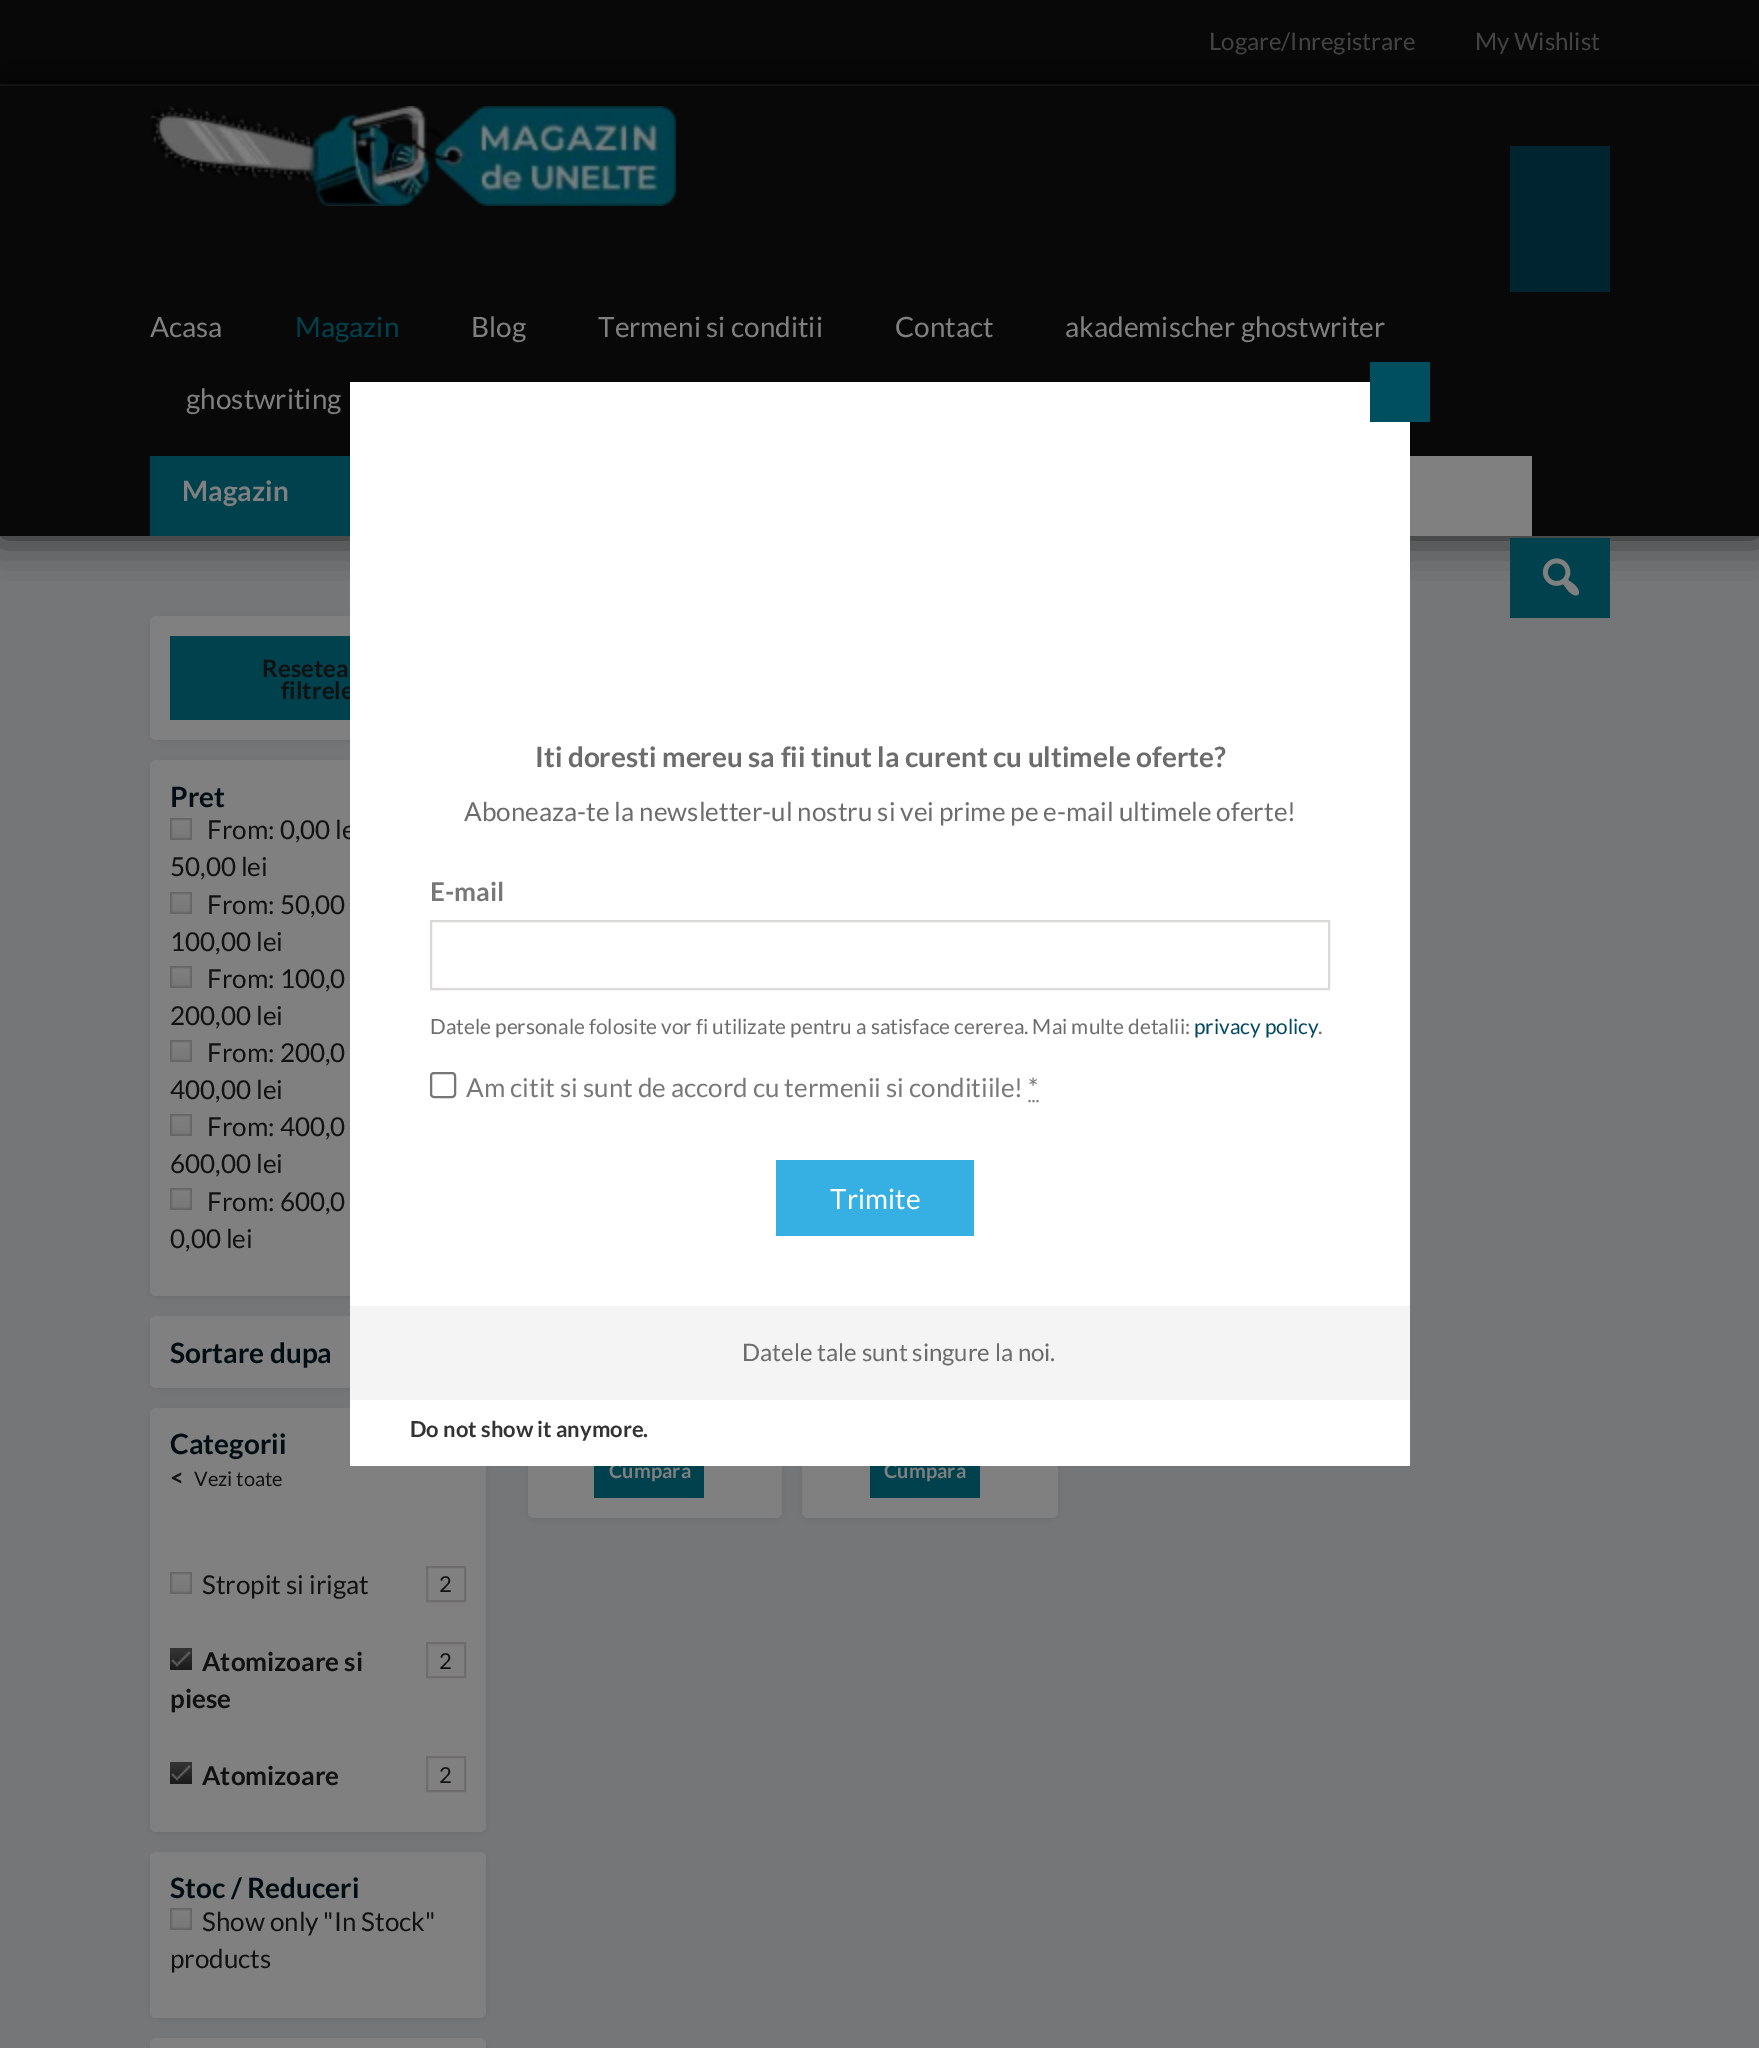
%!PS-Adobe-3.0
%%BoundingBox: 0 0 1759 2048
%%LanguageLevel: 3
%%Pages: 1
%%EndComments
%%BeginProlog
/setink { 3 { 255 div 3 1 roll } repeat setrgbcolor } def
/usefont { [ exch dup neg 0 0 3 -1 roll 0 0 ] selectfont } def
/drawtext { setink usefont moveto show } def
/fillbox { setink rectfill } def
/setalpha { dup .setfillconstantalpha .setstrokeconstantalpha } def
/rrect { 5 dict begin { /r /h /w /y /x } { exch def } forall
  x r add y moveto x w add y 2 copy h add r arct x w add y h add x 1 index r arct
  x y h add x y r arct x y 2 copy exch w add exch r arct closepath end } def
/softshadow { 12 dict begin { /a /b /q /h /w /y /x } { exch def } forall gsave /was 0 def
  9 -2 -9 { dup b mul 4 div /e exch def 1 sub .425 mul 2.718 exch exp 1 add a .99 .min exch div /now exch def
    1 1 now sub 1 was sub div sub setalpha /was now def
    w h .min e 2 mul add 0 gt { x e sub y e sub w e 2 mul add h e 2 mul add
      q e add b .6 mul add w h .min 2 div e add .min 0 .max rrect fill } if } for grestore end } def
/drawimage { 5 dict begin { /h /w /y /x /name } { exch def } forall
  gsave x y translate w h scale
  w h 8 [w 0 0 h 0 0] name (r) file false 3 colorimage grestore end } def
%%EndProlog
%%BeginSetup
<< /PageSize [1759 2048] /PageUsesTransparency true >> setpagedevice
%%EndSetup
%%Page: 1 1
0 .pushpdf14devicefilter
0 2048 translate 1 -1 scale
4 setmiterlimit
0 0 1759 2048 8 8 8 fillbox
0 84 1759 2 30 30 30 fillbox
(Logare/Inregistrare) 1209 50 /Lato-Regular 24 68 68 68 drawtext
(My Wishlist) 1475 50 /Lato-Regular 24 68 68 68 drawtext
0 536 1759 1512 117 118 119 fillbox
gsave
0 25 moveto 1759 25 lineto 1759 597 lineto 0 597 lineto closepath 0 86 moveto 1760 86 lineto 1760 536 lineto 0 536 lineto closepath eoclip newpath
0 0 0 setink
0 86 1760 450 0 20 0.75 softshadow
grestore
(assets/img1.rgb) 150 106 526 100 drawimage
1510 146 100 146 0 36 48 fillbox
(Acasa) 150 337 /Lato-Regular 28 128 128 128 drawtext
(Magazin) 295 337 /Lato-Regular 28 0 65 78 drawtext
(Blog) 471 337 /Lato-Regular 28 128 128 128 drawtext
(Termeni si conditii) 598 337 /Lato-Regular 28 128 128 128 drawtext
(Contact) 895 337 /Lato-Regular 28 128 128 128 drawtext
(akademischer ghostwriter) 1065 337 /Lato-Regular 28 128 128 128 drawtext
(ghostwriting) 186 409 /Lato-Regular 28 128 128 128 drawtext
150 456 200 80 0 65 78 fillbox
(Magazin) 182 501 /Lato-Bold 28 128 128 128 drawtext
1410 456 122 80 128 128 128 fillbox
1510 538 100 80 0 65 78 fillbox
(assets/img2.rgb) 1542 558 38 38 drawimage
0 0 0 setink
152 620 332 120 4 5 0.13 softshadow
128 128 128 setink
150 616 336 124 6 rrect fill
170 636 180 84 0 65 78 fillbox
(Resetea) 262 677 /Lato-Bold 24 17 17 17 drawtext
(filtrele) 281 699 /Lato-Bold 24 17 17 17 drawtext
0 0 0 setink
152 764 332 532 4 5 0.13 softshadow
128 128 128 setink
150 760 336 536 6 rrect fill
(Pret) 170 807 /Lato-Bold 28 0 13 19 drawtext
(assets/img3.rgb) 170 818 22 22 drawimage
(From: 0,00 le) 207 839 /Lato-Regular 26 17 17 17 drawtext
(50,00 lei) 170 876 /Lato-Regular 26 17 17 17 drawtext
(assets/img3.rgb) 170 892 22 22 drawimage
(From: 50,00) 207 914 /Lato-Regular 26 17 17 17 drawtext
(100,00 lei) 170 951 /Lato-Regular 26 17 17 17 drawtext
(assets/img3.rgb) 170 966 22 22 drawimage
(From: 100,0) 207 988 /Lato-Regular 26 17 17 17 drawtext
(200,00 lei) 170 1025 /Lato-Regular 26 17 17 17 drawtext
(assets/img3.rgb) 170 1040 22 22 drawimage
(From: 200,0) 207 1062 /Lato-Regular 26 17 17 17 drawtext
(400,00 lei) 170 1099 /Lato-Regular 26 17 17 17 drawtext
(assets/img3.rgb) 170 1114 22 22 drawimage
(From: 400,0) 207 1136 /Lato-Regular 26 17 17 17 drawtext
(600,00 lei) 170 1173 /Lato-Regular 26 17 17 17 drawtext
(assets/img3.rgb) 170 1188 22 22 drawimage
(From: 600,0) 207 1211 /Lato-Regular 26 17 17 17 drawtext
(0,00 lei) 170 1248 /Lato-Regular 26 17 17 17 drawtext
0 0 0 setink
152 1320 332 68 4 5 0.13 softshadow
128 128 128 setink
150 1316 336 72 6 rrect fill
(Sortare dupa) 170 1363 /Lato-Bold 28 0 13 19 drawtext
0 0 0 setink
152 1412 332 420 4 5 0.13 softshadow
128 128 128 setink
150 1408 336 424 6 rrect fill
(Categorii) 170 1454 /Lato-Bold 28 0 13 19 drawtext
(<) 170 1486 /Lato-Bold 24 17 17 17 drawtext
(Vezi toate) 194 1486 /Lato-Regular 20 17 17 17 drawtext
(assets/img3.rgb) 170 1572 22 22 drawimage
(Stropit si irigat) 202 1594 /Lato-Regular 26 17 17 17 drawtext
110 108 108 setink
2 setlinewidth
427 1567 38 34 rectstroke
(2) 439 1592 /Lato-Regular 22 17 17 17 drawtext
(assets/img4.rgb) 170 1648 22 22 drawimage
(Atomizoare si) 202 1671 /Lato-Bold 26 17 17 17 drawtext
(piese) 170 1708 /Lato-Bold 26 17 17 17 drawtext
110 108 108 setink
427 1643 38 34 rectstroke
(2) 439 1669 /Lato-Regular 22 17 17 17 drawtext
(assets/img4.rgb) 170 1762 22 22 drawimage
(Atomizoare) 202 1785 /Lato-Bold 26 17 17 17 drawtext
110 108 108 setink
427 1757 38 34 rectstroke
(2) 439 1783 /Lato-Regular 22 17 17 17 drawtext
0 0 0 setink
152 1856 332 162 4 5 0.13 softshadow
128 128 128 setink
150 1852 336 166 6 rrect fill
(Stoc / Reduceri) 170 1898 /Lato-Bold 28 0 13 19 drawtext
(assets/img3.rgb) 170 1908 22 22 drawimage
(Show only "In Stock") 202 1931 /Lato-Regular 26 17 17 17 drawtext
(products) 170 1968 /Lato-Regular 26 17 17 17 drawtext
0 0 0 setink
152 2042 332 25 4 5 0.13 softshadow
128 128 128 setink
150 2038 336 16 6 rrect fill
0 0 0 setink
530 742 250 776 4 5 0.13 softshadow
128 128 128 setink
528 738 254 780 6 rrect fill
594 1466 110 32 0 65 78 fillbox
(Cumpara) 609 1478 /Lato-Bold 20 128 128 128 drawtext
0 0 0 setink
804 742 252 776 4 5 0.13 softshadow
128 128 128 setink
802 738 256 780 6 rrect fill
870 1466 110 32 0 65 78 fillbox
(Cumpara) 884 1478 /Lato-Bold 20 128 128 128 drawtext
350 382 1060 1084 255 255 255 fillbox
1370 362 60 60 0 79 96 fillbox
(Iti doresti mereu sa fii tinut la curent cu ultimele oferte?) 535 767 /Lato-Bold 28 109 108 108 drawtext
(Aboneaza-te la newsletter-ul nostru si vei prime pe e-mail ultimele oferte!) 464 821 /Lato-Regular 26 109 108 108 drawtext
(E-mail) 430 901 /Lato-Bold 26 120 120 120 drawtext
219 216 216 setink
431 921 898 68 rectstroke
(Datele personale folosite vor fi utilizate pentru a satisface cererea. Mai multe detalii:) 430 1034 /Lato-Regular 20.8 109 108 108 drawtext
(privacy policy) 1194 1034 /Lato-Regular 20.8 0 71 96 drawtext
(.) 1318 1034 /Lato-Regular 20.8 109 108 108 drawtext
118 118 118 setink
431 1073 24 24 3 rrect stroke
(Am citit si sunt de accord cu termenii si conditiile! *) 466 1097 /Lato-Regular 26 120 120 120 drawtext
1028.5 1101 moveto 1030.5 1101 lineto 1032.5 1101 moveto 1034.5 1101 lineto 1036.5 1101 moveto 1038.5 1101 lineto stroke
776 1160 198 76 54 175 226 fillbox
(Trimite) 830 1209 /Lato-Regular 28 255 255 255 drawtext
350 1306 1060 94 244 244 244 fillbox
(Datele tale sunt singure la noi.) 742 1361 /Lato-Regular 24 109 108 108 drawtext
(Do not show it anymore.) 410 1437 /Lato-Bold 22 51 51 51 drawtext
.poppdf14devicefilter showpage
%%EOF
